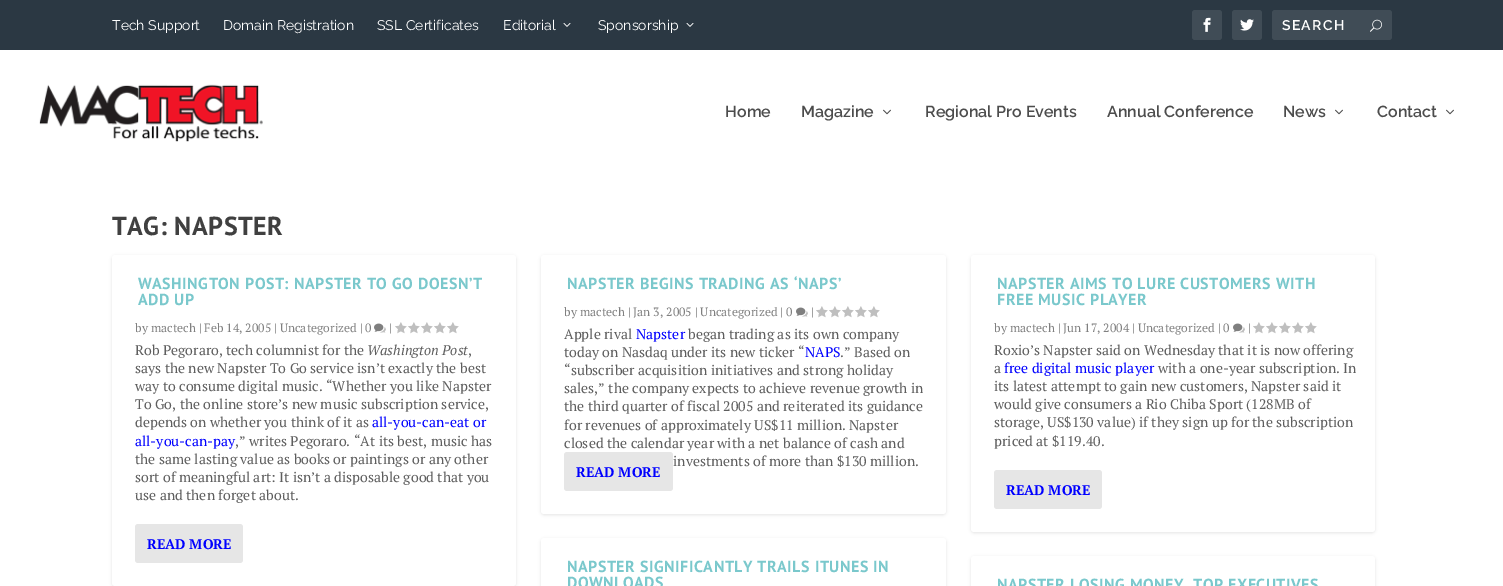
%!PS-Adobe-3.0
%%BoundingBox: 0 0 1503 586
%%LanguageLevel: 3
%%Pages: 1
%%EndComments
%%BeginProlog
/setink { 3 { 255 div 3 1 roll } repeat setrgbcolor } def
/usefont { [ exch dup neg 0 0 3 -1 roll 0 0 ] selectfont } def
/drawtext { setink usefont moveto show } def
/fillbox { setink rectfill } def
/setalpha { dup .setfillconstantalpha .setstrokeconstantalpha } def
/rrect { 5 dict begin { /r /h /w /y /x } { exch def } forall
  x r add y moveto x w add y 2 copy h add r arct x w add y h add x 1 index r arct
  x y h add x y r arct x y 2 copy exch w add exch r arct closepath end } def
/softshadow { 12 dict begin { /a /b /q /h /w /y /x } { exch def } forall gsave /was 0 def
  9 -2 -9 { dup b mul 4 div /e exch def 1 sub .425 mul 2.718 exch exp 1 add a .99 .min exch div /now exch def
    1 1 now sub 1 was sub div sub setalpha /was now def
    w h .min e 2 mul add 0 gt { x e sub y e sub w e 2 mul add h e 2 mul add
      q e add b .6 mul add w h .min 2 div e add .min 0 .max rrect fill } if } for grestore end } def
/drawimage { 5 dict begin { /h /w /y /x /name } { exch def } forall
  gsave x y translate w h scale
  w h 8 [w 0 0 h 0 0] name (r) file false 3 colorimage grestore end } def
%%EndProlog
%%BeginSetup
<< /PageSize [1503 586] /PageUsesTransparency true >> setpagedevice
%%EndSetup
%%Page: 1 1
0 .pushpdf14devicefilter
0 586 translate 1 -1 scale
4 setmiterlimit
0 0 1503 586 255 255 255 fillbox
0 0 1503 50 43 56 67 fillbox
(Tech Support) 112 30 /Raleway-Regular 14 255 255 255 drawtext
(Domain Registration) 223 30 /Raleway-Regular 14 255 255 255 drawtext
(SSL Certificates) 377 30 /Raleway-Regular 14 255 255 255 drawtext
(Editorial) 503 30 /Raleway-Regular 14 255 255 255 drawtext
(assets/img1.rgb) 563 23 8 4 drawimage
(Sponsorship) 598 30 /Raleway-Regular 14 255 255 255 drawtext
(assets/img1.rgb) 686 23 8 4 drawimage
64 76 86 setink
1192 10 30 30 3 rrect fill
(assets/img2.rgb) 1203 17 8 15 drawimage
1232 10 30 30 3 rrect fill
(assets/img3.rgb) 1240 19 14 12 drawimage
1272 10 120 30 3 rrect fill
/Raleway-SemiBold 14 usefont
255 255 255 setink
1282 30 moveto 1.25 0 (SEARCH) ashow
(assets/img4.rgb) 1370 19 12 13 drawimage
(assets/img5.rgb) 39 84 224 58 drawimage
(Home) 725 117 /Raleway-SemiBold 16 76 76 76 drawtext
(Magazine) 801 117 /Raleway-SemiBold 16 76 76 76 drawtext
(assets/img6.rgb) 883 109 8 6 drawimage
(Regional Pro Events) 925 117 /Raleway-SemiBold 16 76 76 76 drawtext
(Annual Conference) 1107 117 /Raleway-SemiBold 16 76 76 76 drawtext
(News) 1283 117 /Raleway-SemiBold 16 76 76 76 drawtext
(assets/img6.rgb) 1335 109 8 6 drawimage
(Contact) 1377 117 /Raleway-SemiBold 16 76 76 76 drawtext
(assets/img6.rgb) 1446 109 8 6 drawimage
/PTSans-Bold 26 usefont
64 64 64 setink
112 235 moveto 0.5 0 (TAG: NAPSTER) ashow
0 0 0 setink
112 256 404 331 3 1.5 0.1 softshadow
255 255 255 setink
112 255 404 331 3 rrect fill
/PTSans-Bold 16 usefont
122 200 204 setink
138 289 moveto 0.5 0 (WASHINGTON POST: NAPSTER TO GO DOESN’T) ashow
138 305 moveto 0.5 0 (ADD UP) ashow
(by mactech | Feb 14, 2005 | Uncategorized | 0) 135 332 /PTSerif-Regular 12 128 128 128 drawtext
(assets/img7.rgb) 374 323 12 10 drawimage
(|) 389 332 /PTSerif-Regular 12 128 128 128 drawtext
(assets/img8.rgb) 395 322 12 12 drawimage
(assets/img8.rgb) 408 322 12 12 drawimage
(assets/img8.rgb) 421 322 12 12 drawimage
(assets/img8.rgb) 434 322 12 12 drawimage
(assets/img8.rgb) 447 322 12 12 drawimage
(Rob Pegoraro, tech columnist for the) 135 355 /PTSerif-Regular 14 94 94 94 drawtext
(Washington Post) 367 355 /PTSerif-Italic 14 94 94 94 drawtext
(,) 468 355 /PTSerif-Regular 14 94 94 94 drawtext
(says the new Napster To Go service isn’t exactly the best) 135 373 /PTSerif-Regular 14 94 94 94 drawtext
(way to consume digital music. “Whether you like Napster) 135 391 /PTSerif-Regular 14 94 94 94 drawtext
(To Go, the online store’s new music subscription service,) 135 409 /PTSerif-Regular 14 94 94 94 drawtext
(depends on whether you think of it as) 135 427 /PTSerif-Regular 14 94 94 94 drawtext
(all-you-can-eat or) 372 427 /PTSerif-Regular 14 0 0 255 drawtext
(all-you-can-pay) 135 446 /PTSerif-Regular 14 0 0 255 drawtext
(,” writes Pegoraro. “At its best, music has) 235 446 /PTSerif-Regular 14 94 94 94 drawtext
(the same lasting value as books or paintings or any other) 135 464 /PTSerif-Regular 14 94 94 94 drawtext
(sort of meaningful art: It isn’t a disposable good that you) 135 482 /PTSerif-Regular 14 94 94 94 drawtext
(use and then forget about.) 135 500 /PTSerif-Regular 14 94 94 94 drawtext
230 230 230 setink
135 524 108 39 3 rrect fill
(READ MORE) 147 549 /PTSerif-Bold 14 0 0 255 drawtext
0 0 0 setink
541 256 405 259 3 1.5 0.1 softshadow
255 255 255 setink
541 255 405 259 3 rrect fill
/PTSans-Bold 16 usefont
122 200 204 setink
567 289 moveto 0.5 0 (NAPSTER BEGINS TRADING AS ‘NAPS’) ashow
(by mactech | Jan 3, 2005 | Uncategorized | 0) 564 316 /PTSerif-Regular 12 128 128 128 drawtext
(assets/img7.rgb) 796 307 12 10 drawimage
(|) 811 316 /PTSerif-Regular 12 128 128 128 drawtext
(assets/img8.rgb) 816 306 12 12 drawimage
(assets/img8.rgb) 829 306 12 12 drawimage
(assets/img8.rgb) 842 306 12 12 drawimage
(assets/img8.rgb) 855 306 12 12 drawimage
(assets/img8.rgb) 868 306 12 12 drawimage
(Apple rival) 564 339 /PTSerif-Regular 14 94 94 94 drawtext
(Napster) 636 339 /PTSerif-Regular 14 0 0 255 drawtext
(began trading as its own company) 688 339 /PTSerif-Regular 14 94 94 94 drawtext
(today on Nasdaq under its new ticker “) 564 357 /PTSerif-Regular 14 94 94 94 drawtext
(NAPS) 805 357 /PTSerif-Regular 14 0 0 255 drawtext
(.” Based on) 840 357 /PTSerif-Regular 14 94 94 94 drawtext
(“subscriber acquisition initiatives and strong holiday) 564 375 /PTSerif-Regular 14 94 94 94 drawtext
(sales,” the company expects to achieve revenue growth in) 564 393 /PTSerif-Regular 14 94 94 94 drawtext
(the third quarter of fiscal 2005 and reiterated its guidance) 564 411 /PTSerif-Regular 14 94 94 94 drawtext
(for revenues of approximately US$11 million. Napster) 564 430 /PTSerif-Regular 14 94 94 94 drawtext
(closed the calendar year with a net balance of cash and) 564 448 /PTSerif-Regular 14 94 94 94 drawtext
(investments of more than $130 million.) 673 466 /PTSerif-Regular 14 94 94 94 drawtext
230 230 230 setink
564 452 109 39 3 rrect fill
(READ MORE) 576 477 /PTSerif-Bold 14 0 0 255 drawtext
0 0 0 setink
541 539 405 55 3 1.5 0.1 softshadow
255 255 255 setink
541 538 405 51 3 rrect fill
/PTSans-Bold 16 usefont
122 200 204 setink
567 572 moveto 0.5 0 (NAPSTER SIGNIFICANTLY TRAILS ITUNES IN) ashow
567 588 moveto 0.5 0 (DOWNLOADS) ashow
0 0 0 setink
971 256 404 277 3 1.5 0.1 softshadow
255 255 255 setink
971 255 404 277 3 rrect fill
122 200 204 setink
997 289 moveto 0.5 0 (NAPSTER AIMS TO LURE CUSTOMERS WITH) ashow
997 305 moveto 0.5 0 (FREE MUSIC PLAYER) ashow
(by mactech | Jun 17, 2004 | Uncategorized | 0) 994 332 /PTSerif-Regular 12 128 128 128 drawtext
(assets/img7.rgb) 1233 323 12 10 drawimage
(|) 1248 332 /PTSerif-Regular 12 128 128 128 drawtext
(assets/img8.rgb) 1253 322 12 12 drawimage
(assets/img8.rgb) 1266 322 12 12 drawimage
(assets/img8.rgb) 1279 322 12 12 drawimage
(assets/img8.rgb) 1292 322 12 12 drawimage
(assets/img8.rgb) 1305 322 12 12 drawimage
(Roxio’s Napster said on Wednesday that it is now offering) 994 355 /PTSerif-Regular 14 94 94 94 drawtext
(a) 994 373 /PTSerif-Regular 14 94 94 94 drawtext
(free digital music player) 1004 373 /PTSerif-Regular 14 0 0 255 drawtext
(with a one-year subscription. In) 1158 373 /PTSerif-Regular 14 94 94 94 drawtext
(its latest attempt to gain new customers, Napster said it) 994 391 /PTSerif-Regular 14 94 94 94 drawtext
(would give consumers a Rio Chiba Sport \(128MB of) 994 409 /PTSerif-Regular 14 94 94 94 drawtext
(storage, US$130 value\) if they sign up for the subscription) 994 427 /PTSerif-Regular 14 94 94 94 drawtext
(priced at $119.40.) 994 446 /PTSerif-Regular 14 94 94 94 drawtext
230 230 230 setink
994 470 108 39 3 rrect fill
(READ MORE) 1006 495 /PTSerif-Bold 14 0 0 255 drawtext
0 0 0 setink
971 557 404 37 3 1.5 0.1 softshadow
255 255 255 setink
971 556 404 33 3 rrect fill
/PTSans-Bold 16 usefont
122 200 204 setink
997 590 moveto 0.5 0 (NAPSTER LOSING MONEY, TOP EXECUTIVES) ashow
.poppdf14devicefilter showpage
%%EOF
